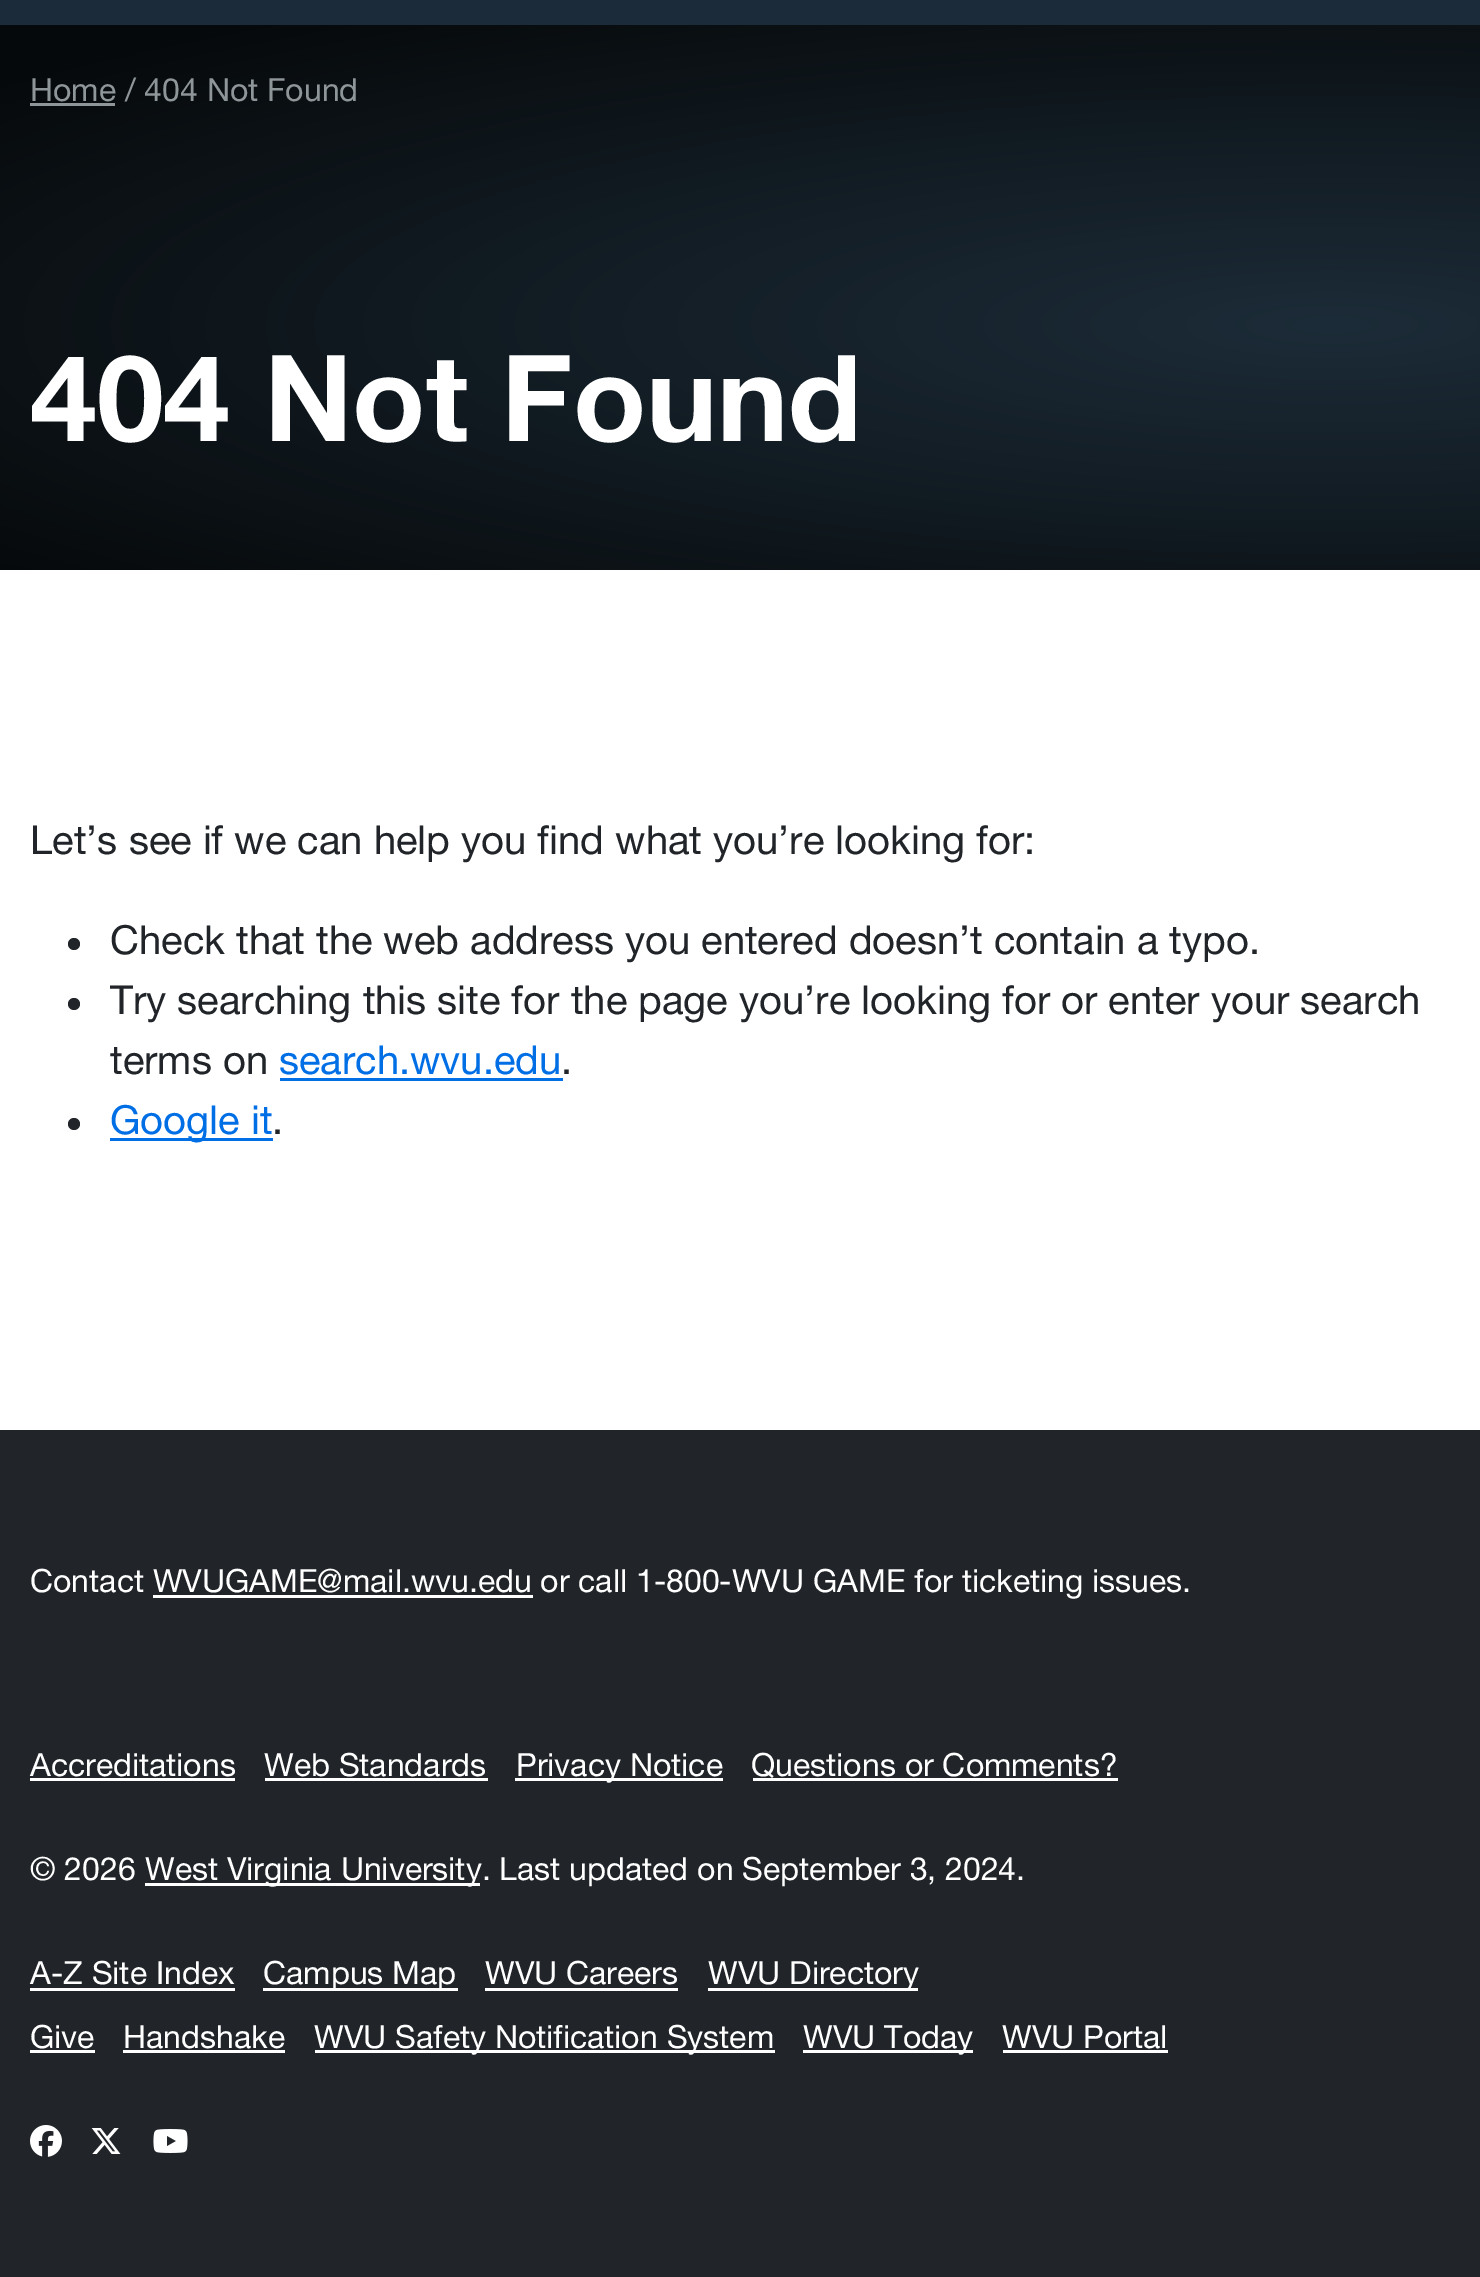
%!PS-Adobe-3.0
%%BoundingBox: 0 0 1480 2277
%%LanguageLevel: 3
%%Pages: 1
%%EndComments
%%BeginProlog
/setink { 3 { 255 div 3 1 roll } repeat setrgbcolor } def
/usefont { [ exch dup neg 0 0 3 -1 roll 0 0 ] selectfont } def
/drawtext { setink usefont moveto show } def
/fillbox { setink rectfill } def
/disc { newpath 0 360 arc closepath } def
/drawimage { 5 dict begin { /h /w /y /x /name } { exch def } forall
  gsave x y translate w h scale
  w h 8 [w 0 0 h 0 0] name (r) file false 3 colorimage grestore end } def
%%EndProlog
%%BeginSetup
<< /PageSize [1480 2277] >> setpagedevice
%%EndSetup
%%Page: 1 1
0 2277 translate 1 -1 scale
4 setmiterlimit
0 0 1480 2277 255 255 255 fillbox
0 0 1480 25 28 43 57 fillbox
gsave 0 25 moveto 1480 25 lineto 1480 570 lineto 0 570 lineto closepath clip newpath 1332 325 translate 1745 393 scale
<< /ShadingType 3 /ColorSpace /DeviceRGB /Coords [0 0 0 0 0 1] /Extend [true true] /Function << /FunctionType 2 /Domain [0 1] /C0 [0.11 0.173 0.22] /C1 [0.024 0.035 0.043] /N 1 >> >> shfill grestore
(Home / 404 Not Found) 30 101 /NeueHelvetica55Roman-Regular 32 143 150 153 drawtext
30 103 85 3 143 150 153 fillbox
(404 Not Found) 30 441 /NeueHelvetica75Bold-Bold 120 255 255 255 drawtext
(Let’s see if we can help you find what you’re looking for:) 30 854 /NeueHelvetica55Roman-Regular 40 33 37 41 drawtext
74 944 6 disc fill
(Check that the web address you entered doesn’t contain a typo.) 110 954 /NeueHelvetica55Roman-Regular 40 33 37 41 drawtext
74 1004 6 disc fill
(Try searching this site for the page you’re looking for or enter your search) 110 1014 /NeueHelvetica55Roman-Regular 40 33 37 41 drawtext
(terms on) 110 1074 /NeueHelvetica55Roman-Regular 40 33 37 41 drawtext
(search.wvu.edu) 279 1074 /NeueHelvetica55Roman-Regular 40 0 111 230 drawtext
280 1078 283 3 0 111 230 fillbox
(.) 561 1074 /NeueHelvetica55Roman-Regular 40 33 37 41 drawtext
74 1124 6 disc fill
110 1138 163 3 0 111 230 fillbox
(Google it) 110 1134 /NeueHelvetica55Roman-Regular 40 0 111 230 drawtext
(.) 272 1134 /NeueHelvetica55Roman-Regular 40 33 37 41 drawtext
0 1430 1480 847 33 37 41 fillbox
(Contact WVUGAME@mail.wvu.edu or call 1-800-WVU GAME for ticketing issues.) 30 1592 /NeueHelvetica55Roman-Regular 32 255 255 255 drawtext
153 1595 380 3 255 255 255 fillbox
(Accreditations) 30 1776 /NeueHelvetica55Roman-Regular 32 255 255 255 drawtext
30 1778 205 3 255 255 255 fillbox
(Web Standards) 264 1776 /NeueHelvetica55Roman-Regular 32 255 255 255 drawtext
265 1778 223 3 255 255 255 fillbox
515 1778 208 3 255 255 255 fillbox
(Privacy Notice) 516 1776 /NeueHelvetica55Roman-Regular 32 255 255 255 drawtext
(Questions or Comments?) 751 1776 /NeueHelvetica55Roman-Regular 32 255 255 255 drawtext
753 1778 365 3 255 255 255 fillbox
(© 2026) 30 1880 /NeueHelvetica55Roman-Regular 32 255 255 255 drawtext
145 1883 335 3 255 255 255 fillbox
(West Virginia University. Last updated on September 3, 2024.) 145 1880 /NeueHelvetica55Roman-Regular 32 255 255 255 drawtext
(A-Z Site Index) 30 1984 /NeueHelvetica55Roman-Regular 32 255 255 255 drawtext
30 1988 205 3 255 255 255 fillbox
263 1988 195 3 255 255 255 fillbox
(Campus Map) 263 1984 /NeueHelvetica55Roman-Regular 32 255 255 255 drawtext
(WVU Careers) 485 1984 /NeueHelvetica55Roman-Regular 32 255 255 255 drawtext
485 1988 193 3 255 255 255 fillbox
708 1988 210 3 255 255 255 fillbox
(WVU Directory) 708 1984 /NeueHelvetica55Roman-Regular 32 255 255 255 drawtext
(Give) 30 2048 /NeueHelvetica55Roman-Regular 32 255 255 255 drawtext
30 2050 65 3 255 255 255 fillbox
(Handshake) 123 2048 /NeueHelvetica55Roman-Regular 32 255 255 255 drawtext
123 2050 162 3 255 255 255 fillbox
315 2050 460 3 255 255 255 fillbox
(WVU Safety Notification System) 314 2048 /NeueHelvetica55Roman-Regular 32 255 255 255 drawtext
803 2050 170 3 255 255 255 fillbox
(WVU Today) 803 2048 /NeueHelvetica55Roman-Regular 32 255 255 255 drawtext
(WVU Portal) 1002 2048 /NeueHelvetica55Roman-Regular 32 255 255 255 drawtext
1003 2050 165 3 255 255 255 fillbox
(assets/img1.rgb) 30 2125 32 32 drawimage
(assets/img2.rgb) 91 2128 30 26 drawimage
(assets/img3.rgb) 153 2129 35 24 drawimage
showpage
%%EOF
